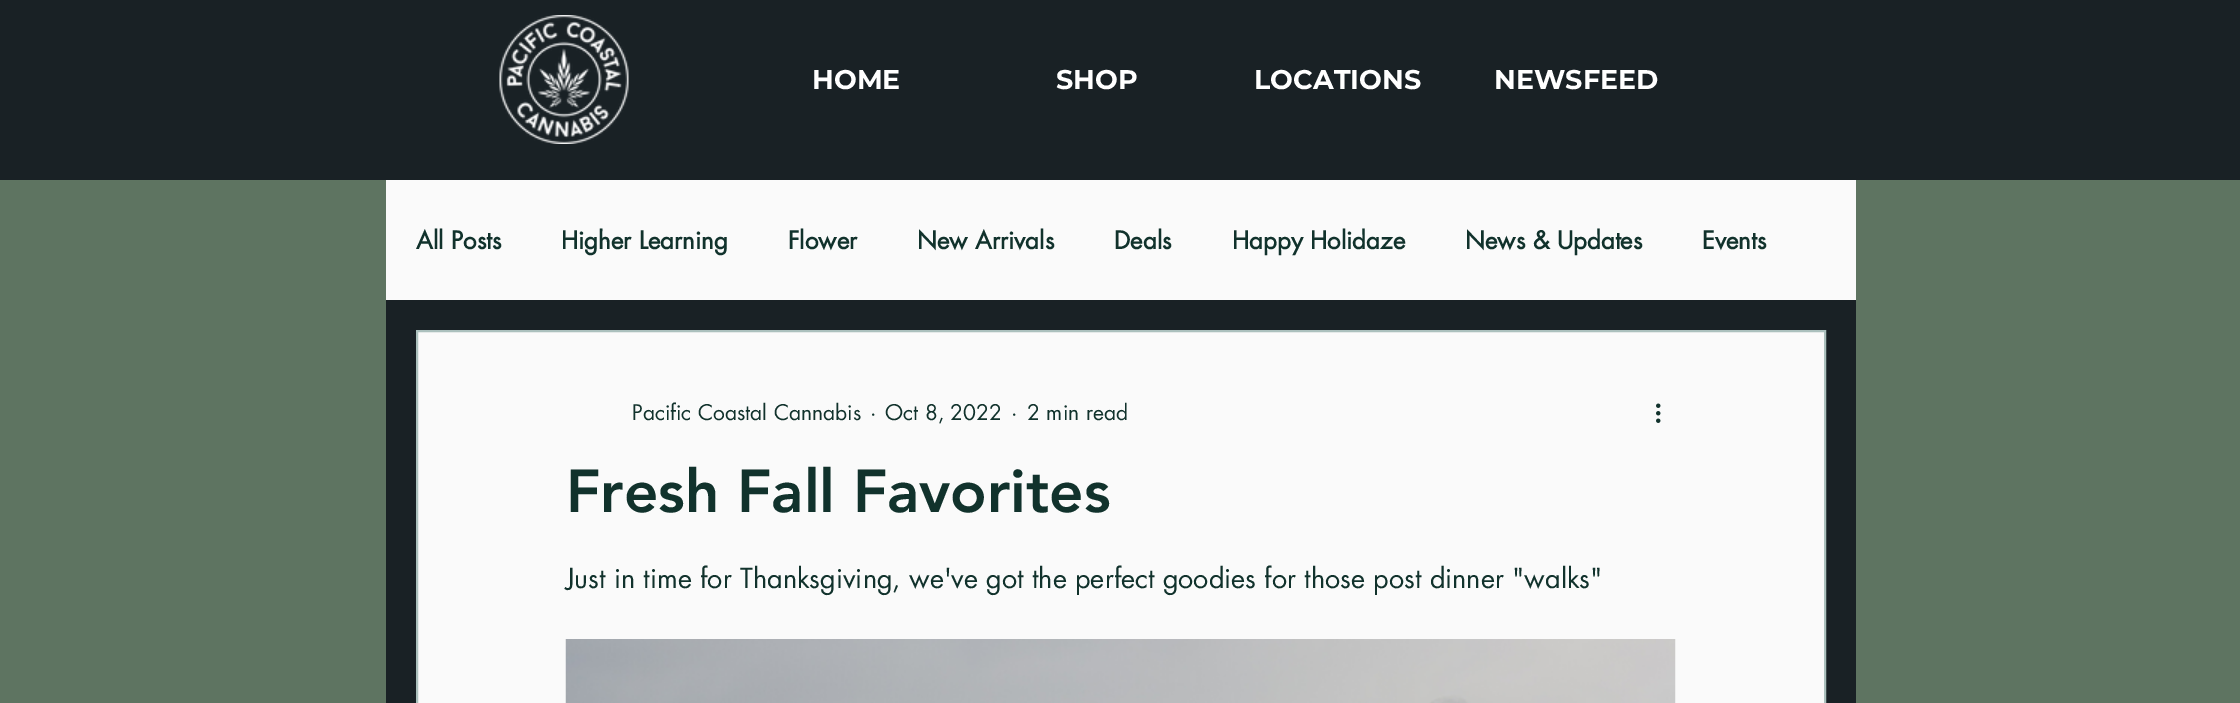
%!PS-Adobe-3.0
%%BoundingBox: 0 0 2240 703
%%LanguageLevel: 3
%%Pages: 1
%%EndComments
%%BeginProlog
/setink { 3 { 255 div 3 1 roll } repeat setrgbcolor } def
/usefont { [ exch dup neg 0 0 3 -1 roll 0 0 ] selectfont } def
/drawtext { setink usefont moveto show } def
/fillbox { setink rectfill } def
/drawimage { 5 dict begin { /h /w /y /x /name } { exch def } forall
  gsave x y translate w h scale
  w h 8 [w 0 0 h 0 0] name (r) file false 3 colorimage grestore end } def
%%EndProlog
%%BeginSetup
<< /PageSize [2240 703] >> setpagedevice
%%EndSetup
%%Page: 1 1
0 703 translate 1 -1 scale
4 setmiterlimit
0 0 2240 703 94 116 97 fillbox
0 0 2240 180 25 33 37 fillbox
(assets/img1.rgb) 499 15 130 129 drawimage
(HOME) 812 89 /Montserrat-Bold 27 255 255 255 drawtext
(SHOP) 1056 89 /Montserrat-Bold 27 255 255 255 drawtext
(LOCATIONS) 1254 89 /Montserrat-Bold 27 255 255 255 drawtext
(NEWSFEED) 1494 89 /Montserrat-Bold 27 255 255 255 drawtext
386 300 1470 403 25 33 37 fillbox
386 180 1470 120 250 250 250 fillbox
(All Posts) 416 249 /futura-Bold 24 17 50 44 drawtext
(Higher Learning) 561 249 /futura-Bold 24 17 50 44 drawtext
(Flower) 788 249 /futura-Bold 24 17 50 44 drawtext
(New Arrivals) 917 249 /futura-Bold 24 17 50 44 drawtext
(Deals) 1114 249 /futura-Bold 24 17 50 44 drawtext
(Happy Holidaze) 1232 249 /futura-Bold 24 17 50 44 drawtext
(News & Updates) 1465 249 /futura-Bold 24 17 50 44 drawtext
(Events) 1702 249 /futura-Bold 24 17 50 44 drawtext
250 250 250 setink
417 331 moveto 1825 331 lineto 1825 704 lineto 417 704 lineto closepath gsave fill grestore
171 192 189 setink
2 setlinewidth
stroke
(Pacific Coastal Cannabis) 632 420 /futura-Regular 21 17 50 44 drawtext
(·) 870 420 /futura-Regular 21 17 50 44 drawtext
(Oct 8, 2022) 885 420 /futura-Regular 21 17 50 44 drawtext
(·) 1011 420 /futura-Regular 21 17 50 44 drawtext
(2 min read) 1027 420 /futura-Regular 21 17 50 44 drawtext
(assets/img2.rgb) 1656 403 5 20 drawimage
(Fresh Fall Favorites) 566 512 /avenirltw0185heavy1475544-Black 60 17 50 44 drawtext
(Just in time for Thanksgiving, we've got the perfect goodies for those post dinner "walks") 566 588 /futura-Regular 27 17 50 44 drawtext
(assets/img3.rgb) 565 639 1111 64 drawimage
showpage
%%EOF
